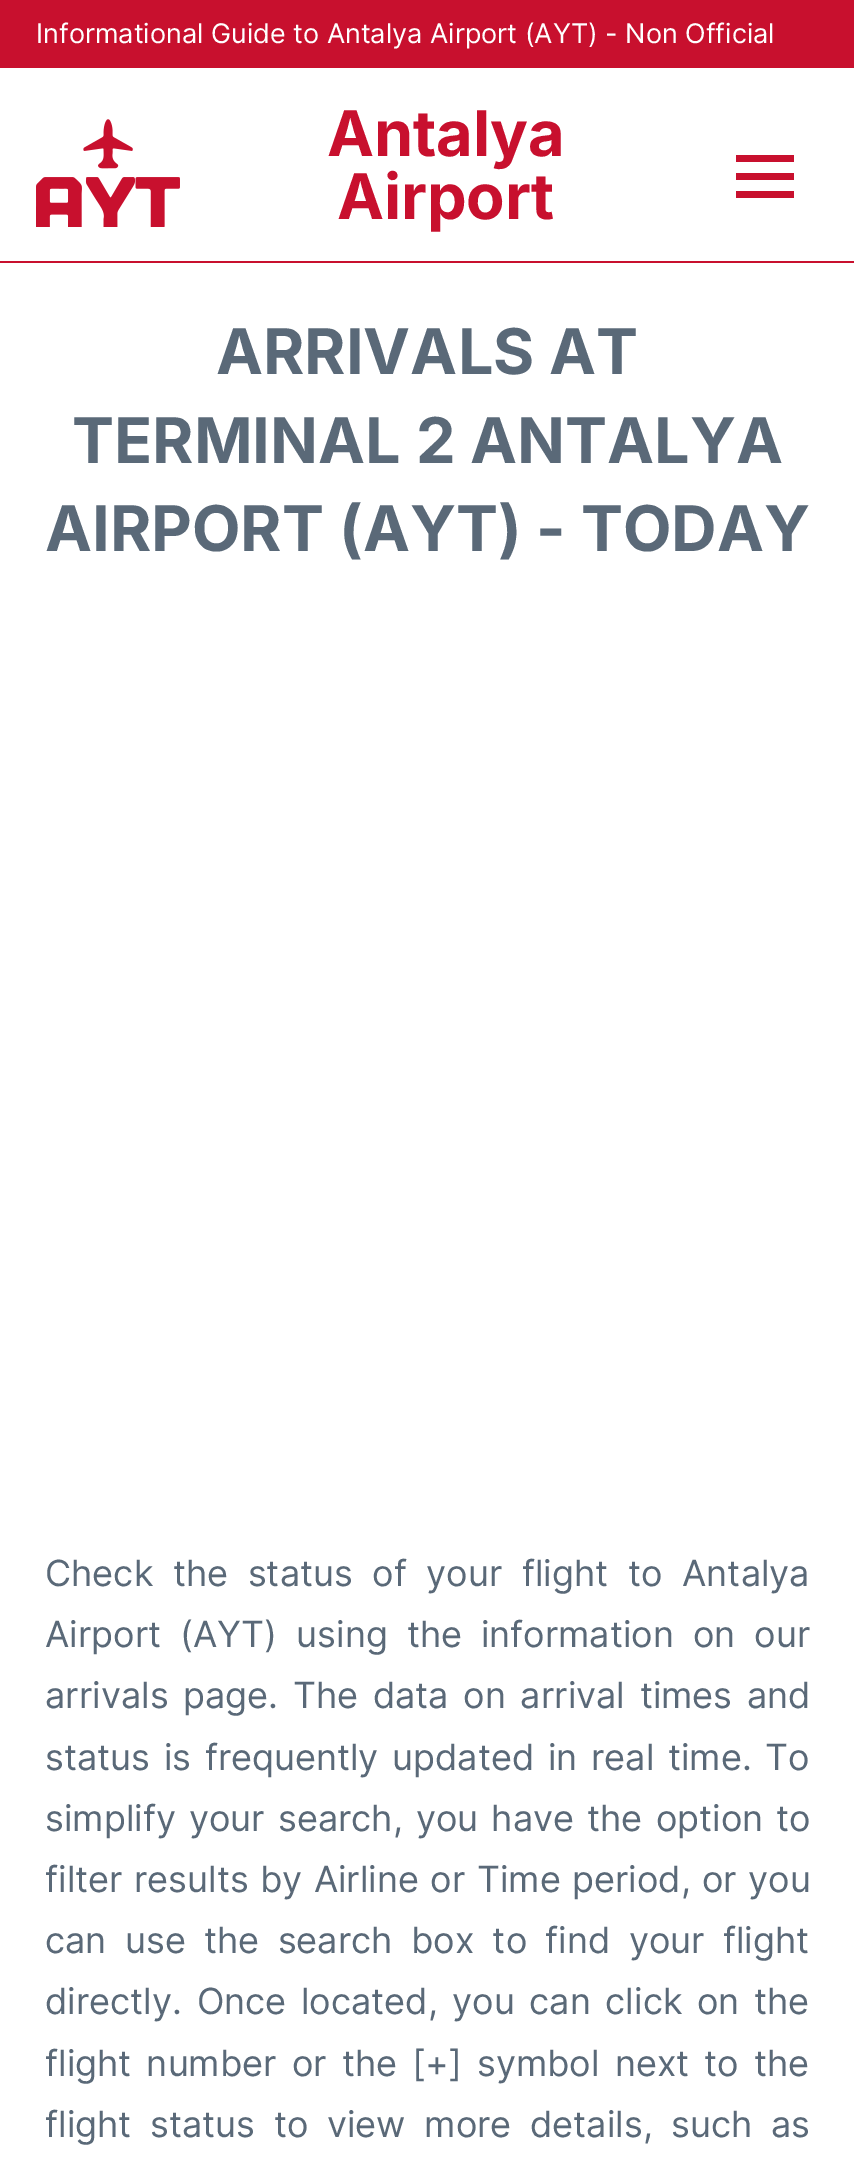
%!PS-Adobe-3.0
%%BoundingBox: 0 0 854 2181
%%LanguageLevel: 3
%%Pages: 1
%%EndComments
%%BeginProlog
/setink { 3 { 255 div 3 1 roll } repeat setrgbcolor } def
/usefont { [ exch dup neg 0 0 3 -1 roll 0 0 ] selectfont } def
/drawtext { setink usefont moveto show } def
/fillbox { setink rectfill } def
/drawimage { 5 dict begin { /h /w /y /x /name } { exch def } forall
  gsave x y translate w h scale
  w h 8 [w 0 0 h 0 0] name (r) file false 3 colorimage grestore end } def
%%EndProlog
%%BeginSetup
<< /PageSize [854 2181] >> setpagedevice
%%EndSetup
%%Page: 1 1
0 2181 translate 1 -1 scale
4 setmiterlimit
0 0 854 2181 255 255 255 fillbox
0 0 854 68 200 16 46 fillbox
(Informational Guide to Antalya Airport \(AYT\) - Non Official) 36 43 /Inter-Regular 27 255 255 255 drawtext
0 261 854 2 200 16 46 fillbox
(assets/img1.rgb) 36 119 144 108 drawimage
(Antalya) 327 156 /Inter-Bold 63 200 16 46 drawtext
(Airport) 337 219 /Inter-Bold 63 200 16 46 drawtext
736 173 58 7 200 16 46 fillbox
736 155 58 7 200 16 46 fillbox
736 191 58 7 200 16 46 fillbox
(ARRIVALS AT) 216 374 /Inter-Bold 63 90 105 120 drawtext
(TERMINAL 2 ANTALYA) 72 463 /Inter-Bold 63 90 105 120 drawtext
(AIRPORT \(AYT\) - TODAY) 45 551 /Inter-Bold 63 90 105 120 drawtext
/Inter-Regular 36 usefont
45 1586 moveto 9.5 0 32 (Check the status of your flight to Antalya) widthshow
45 1647 moveto 8.75 0 32 (Airport \(AYT\) using the information on our) widthshow
45 1708 moveto 4.5 0 32 (arrivals page. The data on arrival times and) widthshow
45 1770 moveto 3.5 0 32 (status is frequently updated in real time. To) widthshow
45 1831 moveto 3 0 32 (simplify your search, you have the option to) widthshow
45 1892 moveto 1.25 0 32 (filter results by Airline or Time period, or you) widthshow
45 1953 moveto 8.25 0 32 (can use the search box to find your flight) widthshow
45 2014 moveto 4.5 0 32 (directly. Once located, you can click on the) widthshow
45 2076 moveto 5 0 32 (flight number or the [+] symbol next to the) widthshow
45 2137 moveto 8.5 0 32 (flight status to view more details, such as) widthshow
showpage
%%EOF
